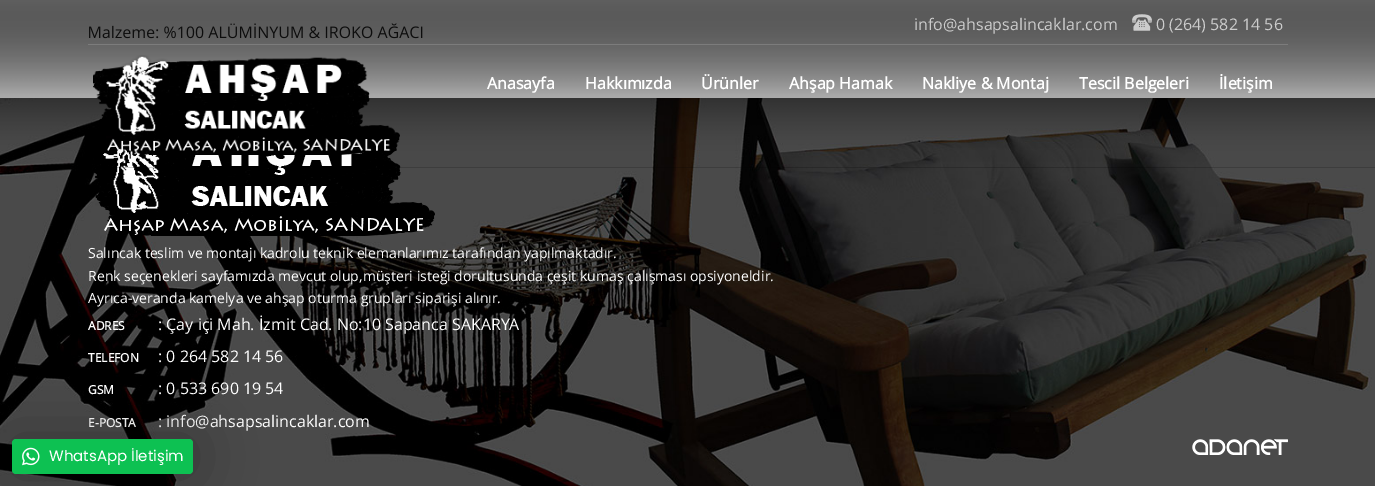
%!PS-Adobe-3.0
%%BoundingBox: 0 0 1375 486
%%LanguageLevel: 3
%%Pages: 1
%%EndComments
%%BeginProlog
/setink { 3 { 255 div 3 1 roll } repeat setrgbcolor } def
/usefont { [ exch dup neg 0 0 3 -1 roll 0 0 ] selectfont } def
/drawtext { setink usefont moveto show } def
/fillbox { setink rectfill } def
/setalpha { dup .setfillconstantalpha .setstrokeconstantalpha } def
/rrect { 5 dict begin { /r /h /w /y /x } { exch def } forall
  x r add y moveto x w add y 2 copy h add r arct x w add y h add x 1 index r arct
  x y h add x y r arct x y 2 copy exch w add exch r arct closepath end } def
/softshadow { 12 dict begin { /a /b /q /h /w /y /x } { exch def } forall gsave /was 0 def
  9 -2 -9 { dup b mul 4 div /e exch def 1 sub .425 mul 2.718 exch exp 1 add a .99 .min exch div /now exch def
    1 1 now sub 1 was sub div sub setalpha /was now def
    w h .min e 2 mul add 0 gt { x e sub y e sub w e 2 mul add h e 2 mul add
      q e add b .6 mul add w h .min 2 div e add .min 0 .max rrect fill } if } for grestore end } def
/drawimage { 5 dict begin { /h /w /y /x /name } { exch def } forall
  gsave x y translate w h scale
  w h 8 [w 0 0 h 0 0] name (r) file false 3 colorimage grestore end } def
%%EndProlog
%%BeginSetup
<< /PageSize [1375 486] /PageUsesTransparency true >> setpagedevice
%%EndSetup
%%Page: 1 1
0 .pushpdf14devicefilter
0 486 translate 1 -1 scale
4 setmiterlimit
0 0 1375 486 255 255 255 fillbox
(Malzeme: %100 ALÜMİNYUM & IROKO AĞACI) 88 38 /OpenSans-Regular 16 34 34 34 drawtext
(assets/img4.rgb) 0 98 1375 388 drawimage
(assets/img5.rgb) 94 126 341 110 drawimage
(assets/img1.rgb) 0 0 1375 168 drawimage
88 44 1200 1 124 124 124 fillbox
(info@ahsapsalincaklar.com) 914 30 /OpenSans-Regular 16 204 204 204 drawtext
(assets/img2.rgb) 1132 14 20 17 drawimage
(0 \(264\) 582 14 56) 1156 30 /OpenSans-Regular 16 204 204 204 drawtext
(assets/img3.rgb) 93 55 307 100 drawimage
(Anasayfa) 487 89 /OpenSans-Bold 16 255 255 255 drawtext
(Hakkımızda) 585 89 /OpenSans-Bold 16 255 255 255 drawtext
(Ürünler) 701 89 /OpenSans-Bold 16 255 255 255 drawtext
(Ahşap Hamak) 789 89 /OpenSans-Bold 16 255 255 255 drawtext
(Nakliye & Montaj) 922 89 /OpenSans-Bold 16 255 255 255 drawtext
(Tescil Belgeleri) 1079 89 /OpenSans-Bold 16 255 255 255 drawtext
(İletişim) 1219 89 /OpenSans-Bold 16 255 255 255 drawtext
(Salıncak teslim ve montajı kadrolu teknik elemanlarımız tarafından yapılmaktadır.) 88 258 /OpenSans-Regular 14 255 255 255 drawtext
(Renk seçenekleri sayfamızda mevcut olup,müşteri isteği dorultusunda çeşit kumaş çalışması opsiyoneldir.) 88 281 /OpenSans-Regular 14 255 255 255 drawtext
(Ayrıca-veranda kamelya ve ahşap oturma grupları siparişi alınır.) 88 303 /OpenSans-Regular 14 255 255 255 drawtext
(ADRES) 88 330 /OpenSans-Bold 12 255 255 255 drawtext
(: Çay içi Mah. İzmit Cad. No:10 Sapanca SAKARYA) 158 330 /OpenSans-Regular 16 255 255 255 drawtext
(TELEFON) 88 362 /OpenSans-Bold 12 255 255 255 drawtext
(: 0 264 582 14 56) 158 362 /OpenSans-Regular 16 255 255 255 drawtext
(GSM) 88 394 /OpenSans-Bold 12 255 255 255 drawtext
(: 0 533 690 19 54) 158 394 /OpenSans-Regular 16 255 255 255 drawtext
(E-POSTA) 88 427 /OpenSans-Bold 12 255 255 255 drawtext
(: info@ahsapsalincaklar.com) 158 427 /OpenSans-Regular 16 255 255 255 drawtext
(assets/img6.rgb) 1192 439 96 16 drawimage
0 0 0 setink
12 439 181 35 4 30 0.3 softshadow
13 193 82 setink
12 439 181 35 4 rrect fill
(assets/img7.rgb) 22 447 18 19 drawimage
(WhatsApp İletişim) 49 461 /Poppins-Regular 15 255 255 255 drawtext
.poppdf14devicefilter showpage
%%EOF
